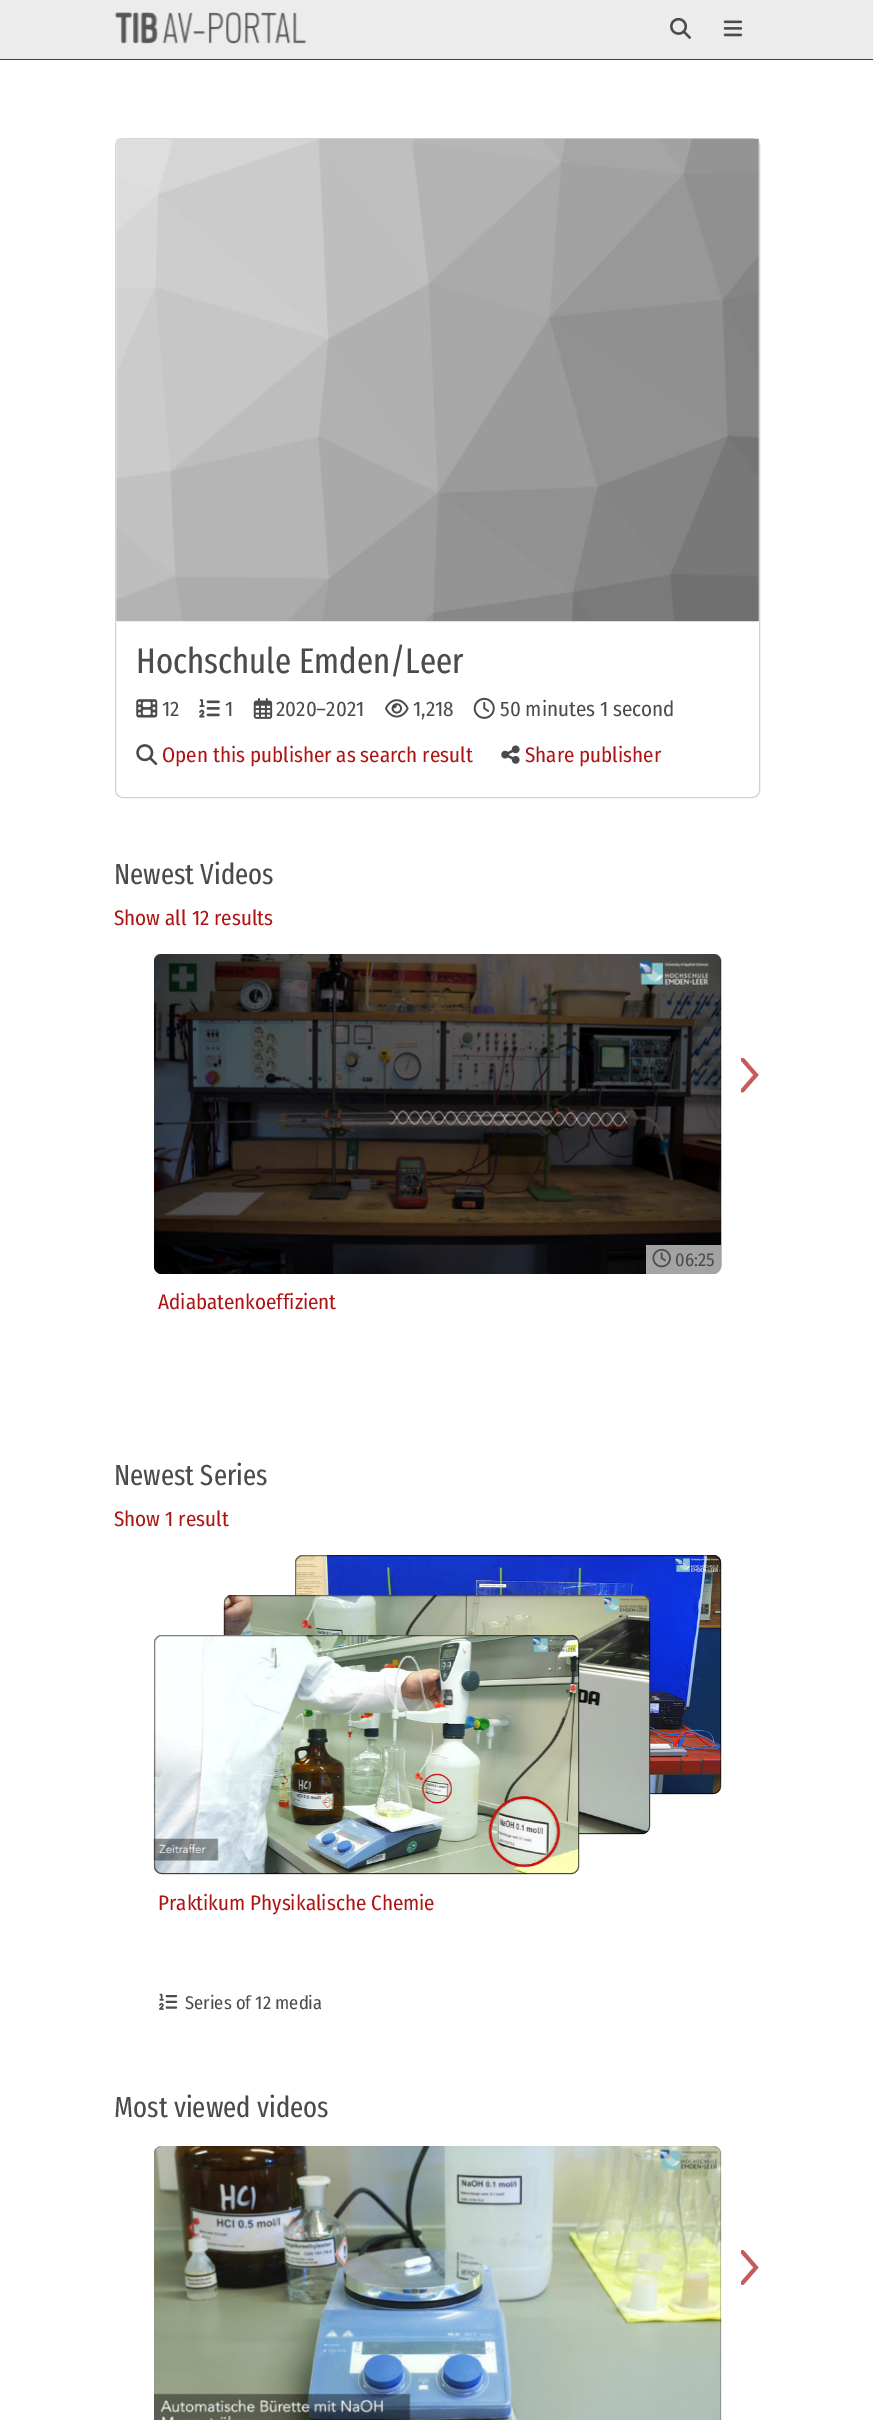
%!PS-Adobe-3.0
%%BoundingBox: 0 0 873 2420
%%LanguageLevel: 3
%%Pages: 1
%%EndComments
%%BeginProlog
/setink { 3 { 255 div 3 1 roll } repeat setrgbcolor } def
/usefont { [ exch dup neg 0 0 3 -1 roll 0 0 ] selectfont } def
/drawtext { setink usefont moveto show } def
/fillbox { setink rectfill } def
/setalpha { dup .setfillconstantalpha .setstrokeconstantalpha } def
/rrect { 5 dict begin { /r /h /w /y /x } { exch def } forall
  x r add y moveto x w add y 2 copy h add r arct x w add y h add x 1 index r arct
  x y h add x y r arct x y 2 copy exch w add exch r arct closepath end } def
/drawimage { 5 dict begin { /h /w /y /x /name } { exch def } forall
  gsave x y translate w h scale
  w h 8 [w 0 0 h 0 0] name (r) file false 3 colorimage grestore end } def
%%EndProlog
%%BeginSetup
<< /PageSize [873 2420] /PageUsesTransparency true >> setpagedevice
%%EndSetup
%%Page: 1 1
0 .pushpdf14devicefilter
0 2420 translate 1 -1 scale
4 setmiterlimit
0 0 873 2420 255 255 255 fillbox
0 0 873 59 236 236 236 fillbox
0 59 873 1 175 20 20 fillbox
(assets/img1.rgb) 114 12 193 32 drawimage
(assets/img2.rgb) 670 17 21 22 drawimage
(assets/img3.rgb) 723 20 20 17 drawimage
210 210 210 setink
115.5 138.5 644 659 7.5 rrect stroke
(assets/img4.rgb) 116 138 643 484 drawimage
(Hochschule Emden/Leer) 136 673 /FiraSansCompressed-Regular 35.6 75 75 75 drawtext
(assets/img5.rgb) 136 699 22 19 drawimage
(12) 162 716 /FiraSansCondensed-Regular 21 75 75 75 drawtext
(assets/img6.rgb) 199 699 21 19 drawimage
(1) 225 716 /FiraSansCondensed-Regular 21 75 75 75 drawtext
(assets/img7.rgb) 253 697 20 22 drawimage
(2020–2021) 276 716 /FiraSansCondensed-Regular 21 75 75 75 drawtext
(assets/img8.rgb) 385 699 24 19 drawimage
(1,218) 413 716 /FiraSansCondensed-Regular 21 75 75 75 drawtext
(assets/img9.rgb) 473 697 22 22 drawimage
(50 minutes 1 second) 500 716 /FiraSansCondensed-Regular 21 75 75 75 drawtext
(assets/img10.rgb) 136 744 22 22 drawimage
(Open this publisher as search result) 162 762 /FiraSansCondensed-Regular 21 175 20 20 drawtext
(assets/img11.rgb) 501 745 19 19 drawimage
(Share publisher) 525 762 /FiraSansCondensed-Regular 21 175 20 20 drawtext
(Newest Videos) 114 884 /FiraSansCompressed-Regular 29 75 75 75 drawtext
(Show all 12 results) 114 925 /FiraSansCondensed-Regular 21 175 20 20 drawtext
gsave
741 1058 18 35 rectclip
199 91 91 setink
3.9 setlinewidth
1 setlinecap
742.5 1059.5 moveto 756 1075 lineto 742.5 1090.5 lineto stroke
grestore
(assets/img12.rgb) 154 954 568 320 drawimage
0.63 setalpha
646 1245 75 29 255 255 255 fillbox
1 setalpha
(assets/img13.rgb) 652 1248 19 20 drawimage
(06:25) 675 1266 /FiraSansCondensed-Regular 18.5 75 75 75 drawtext
(Adiabatenkoeffizient) 158 1309 /FiraSansCondensed-Regular 21 175 20 20 drawtext
(Newest Series) 114 1485 /FiraSansCompressed-Regular 29 75 75 75 drawtext
(Show 1 result) 114 1526 /FiraSansCondensed-Regular 21 175 20 20 drawtext
0 0 0 setink
295 1555 426 239 8 rrect fill
(assets/img14.rgb) 295 1555 427 239 drawimage
0.5 setalpha
295.5 1555.5 425 238 7.5 rrect stroke
1 setalpha
224 1595 426 239 8 rrect fill
(assets/img15.rgb) 223 1595 428 239 drawimage
0.5 setalpha
224.5 1595.5 425 238 7.5 rrect stroke
1 setalpha
154 1635 425 239 8 rrect fill
(assets/img16.rgb) 153 1635 426 239 drawimage
0.5 setalpha
154.5 1635.5 424 238 7.5 rrect stroke
1 setalpha
(Praktikum Physikalische Chemie) 158 1910 /FiraSansCondensed-Regular 21 175 20 20 drawtext
(assets/img17.rgb) 159 1993 19 17 drawimage
(Series of 12 media) 185 2009 /FiraSansCondensed-Regular 18.5 75 75 75 drawtext
(Most viewed videos) 114 2117 /FiraSansCompressed-Regular 29 75 75 75 drawtext
(assets/img18.rgb) 154 2146 568 274 drawimage
gsave
741 2250 18 35 rectclip
199 91 91 setink
3.9 setlinewidth
1 setlinecap
742.5 2252 moveto 756 2267.5 lineto 742.5 2283 lineto stroke
grestore
.poppdf14devicefilter showpage
%%EOF
